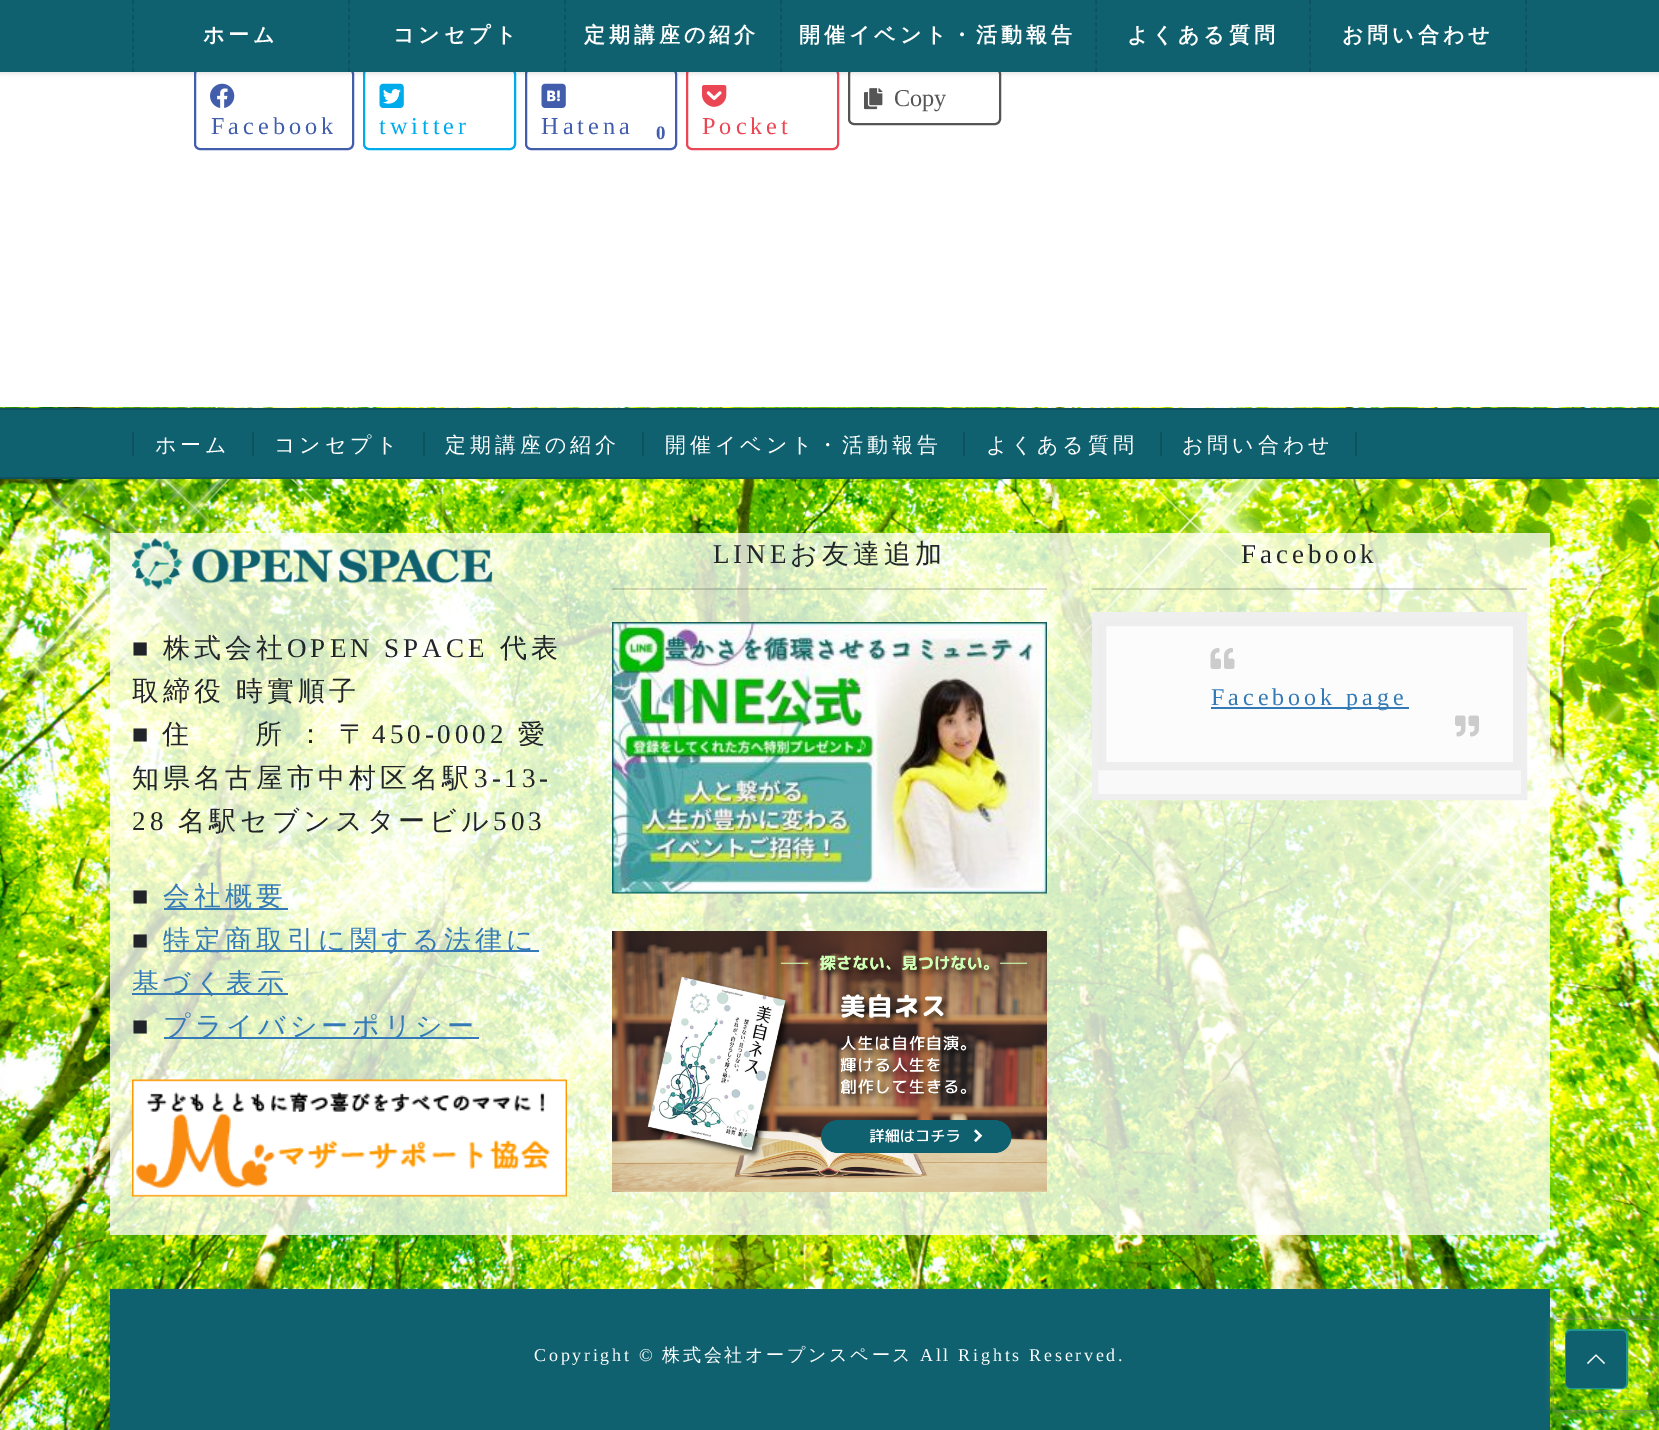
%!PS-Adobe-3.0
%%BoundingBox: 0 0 1659 1430
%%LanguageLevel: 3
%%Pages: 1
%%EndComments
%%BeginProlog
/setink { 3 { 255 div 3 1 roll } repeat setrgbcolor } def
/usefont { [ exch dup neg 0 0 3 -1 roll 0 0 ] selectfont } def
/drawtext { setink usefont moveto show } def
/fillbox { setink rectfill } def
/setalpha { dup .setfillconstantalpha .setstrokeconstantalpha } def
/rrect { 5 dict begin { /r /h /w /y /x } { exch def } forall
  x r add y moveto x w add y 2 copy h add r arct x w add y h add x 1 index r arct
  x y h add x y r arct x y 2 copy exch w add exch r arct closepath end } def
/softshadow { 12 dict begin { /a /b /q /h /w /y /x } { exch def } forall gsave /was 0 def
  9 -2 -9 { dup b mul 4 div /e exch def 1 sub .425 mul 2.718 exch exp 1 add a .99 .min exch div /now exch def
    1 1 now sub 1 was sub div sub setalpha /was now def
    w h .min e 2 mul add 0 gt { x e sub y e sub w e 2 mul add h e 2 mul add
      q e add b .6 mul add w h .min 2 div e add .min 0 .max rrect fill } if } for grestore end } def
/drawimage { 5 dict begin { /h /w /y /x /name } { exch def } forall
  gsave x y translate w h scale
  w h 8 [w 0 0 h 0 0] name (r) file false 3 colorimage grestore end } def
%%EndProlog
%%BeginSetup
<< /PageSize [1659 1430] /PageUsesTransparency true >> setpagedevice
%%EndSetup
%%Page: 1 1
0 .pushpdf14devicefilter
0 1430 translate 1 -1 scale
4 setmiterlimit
0 0 1659 1430 255 255 255 fillbox
85 85 85 setink
2 setlinewidth
849 69 151 55 5 rrect stroke
66 93 171 setink
195 69 158 80 5 rrect stroke
0 171 236 setink
364 69 151 80 5 rrect stroke
66 93 171 setink
526 69 150 80 5 rrect stroke
234 70 84 setink
687 69 151 80 5 rrect stroke
0 0 0 setink
0 2 1659 72 0 2 0.1 softshadow
0 0 1659 72 15 97 111 fillbox
13 82 94 setink
1.5 setlinewidth
[4.5 3] 0 setdash
133 0 moveto 133 72 lineto stroke
/WenQuanYiZenHei-Bold 21 usefont
255 255 255 setink
203 42 moveto 4 0 (ホーム) ashow
13 82 94 setink
349 0 moveto 349 72 lineto stroke
255 255 255 setink
393 42 moveto 4 0 (コンセプト) ashow
13 82 94 setink
565 0 moveto 565 72 lineto stroke
255 255 255 setink
584 42 moveto 4 0 (定期講座の紹介) ashow
13 82 94 setink
781 0 moveto 781 72 lineto stroke
255 255 255 setink
799 42 moveto 4 0 (開催イベント・活動報告) ashow
13 82 94 setink
1096 0 moveto 1096 72 lineto stroke
255 255 255 setink
1127 42 moveto 4 0 (よくある質問) ashow
13 82 94 setink
1526 0 moveto 1526 72 lineto stroke
1310 0 moveto 1310 72 lineto stroke
255 255 255 setink
1342 42 moveto 4 0 (お問い合わせ) ashow
(assets/img1.rgb) 864 88 19 22 drawimage
(Copy) 894 106 /LiberationSerif-Regular 24.25 85 85 85 drawtext
(assets/img2.rgb) 210 83 25 25 drawimage
66 93 171 setink
211 134 moveto 4 0 (Facebook) ashow
(assets/img3.rgb) 379 83 25 25 drawimage
0 171 236 setink
379 134 moveto 4 0 (twitter) ashow
(assets/img4.rgb) 541 83 25 25 drawimage
66 93 171 setink
541 134 moveto 4 0 (Hatena) ashow
/LiberationSerif-Bold 19 usefont
656 139 moveto 4 0 (0) ashow
(assets/img5.rgb) 702 85 25 22 drawimage
/LiberationSerif-Regular 24.25 usefont
234 70 84 setink
702 134 moveto 4 0 (Pocket) ashow
(assets/img6.rgb) 0 407 1659 1023 drawimage
0 410 1659 67 15 97 111 fillbox
0 408 1659 2 13 82 94 fillbox
0 477 1659 2 13 82 94 fillbox
/WenQuanYiZenHei-Medium 21 usefont
255 255 255 setink
155 452 moveto 4 0 (ホーム) ashow
132 432 2 24 13 82 94 fillbox
255 255 255 setink
274 452 moveto 4 0 (コンセプト) ashow
252 432 2 24 13 82 94 fillbox
255 255 255 setink
445 452 moveto 4 0 (定期講座の紹介) ashow
423 432 2 24 13 82 94 fillbox
255 255 255 setink
665 452 moveto 4 0 (開催イベント・活動報告) ashow
642 432 2 24 13 82 94 fillbox
255 255 255 setink
986 452 moveto 4 0 (よくある質問) ashow
963 432 2 24 13 82 94 fillbox
255 255 255 setink
1182 452 moveto 4 0 (お問い合わせ) ashow
1355 432 2 24 13 82 94 fillbox
1160 432 2 24 13 82 94 fillbox
0.76 setalpha
110 533 1440 702 255 255 255 fillbox
1 setalpha
(assets/img7.rgb) 132 538 361 52 drawimage
/LiberationSerif-Regular 27 usefont
33 37 41 setink
132 657 moveto 4 0 (■) ashow
/WenQuanYiZenHei-Medium 27 usefont
163 657 moveto 4 0 (株式会社) ashow
/LiberationSerif-Regular 27 usefont
287 657 moveto 4 0 (OPEN SPACE) ashow
/WenQuanYiZenHei-Medium 27 usefont
500 657 moveto 4 0 (代表) ashow
132 700 moveto -1 0 32 4 0 (取締役 時實順子) awidthshow
/LiberationSerif-Regular 27 usefont
132 743 moveto 4 0 (■) ashow
/WenQuanYiZenHei-Medium 27 usefont
162 743 moveto -1 0 32 4 0 (住　　所 ： 〒) awidthshow
/LiberationSerif-Regular 27 usefont
372 743 moveto 4 0 (450-0002) ashow
/WenQuanYiZenHei-Medium 27 usefont
518 743 moveto 4 0 (愛) ashow
132 787 moveto 4 0 (知県名古屋市中村区名駅) ashow
/LiberationSerif-Regular 27 usefont
474 787 moveto 4 0 (3-13-) ashow
132 830 moveto 4 0 (28) ashow
/WenQuanYiZenHei-Medium 27 usefont
178 830 moveto 4 0 (名駅セブンスタービル) ashow
/LiberationSerif-Regular 27 usefont
493 830 moveto 4 0 (503) ashow
132 905 moveto 4 0 (■) ashow
164 908 124 2 51 122 183 fillbox
/WenQuanYiZenHei-Medium 27 usefont
163 905 moveto 4 0 (会社概要) ashow
/LiberationSerif-Regular 27 usefont
33 37 41 setink
132 949 moveto 4 0 (■) ashow
164 950 375 2 51 122 183 fillbox
/WenQuanYiZenHei-Medium 27 usefont
163 949 moveto 4 0 (特定商取引に関する法律に) ashow
132 993 156 2 51 122 183 fillbox
132 992 moveto 4 0 (基づく表示) ashow
/LiberationSerif-Regular 27 usefont
33 37 41 setink
132 1035 moveto 4 0 (■) ashow
164 1037 315 2 51 122 183 fillbox
/WenQuanYiZenHei-Medium 27 usefont
163 1035 moveto 4 0 (プライバシーポリシー) ashow
(assets/img8.rgb) 132 1079 435 118 drawimage
0.15 setalpha
612 588 435 2 0 0 0 fillbox
/LiberationSerif-Regular 27 usefont
1 setalpha
33 37 41 setink
713 563 moveto 4 0 (LINE) ashow
/WenQuanYiZenHei-Medium 27 usefont
790 563 moveto 4 0 (お友達追加) ashow
(assets/img9.rgb) 612 622 435 272 drawimage
(assets/img10.rgb) 612 931 435 261 drawimage
0.15 setalpha
1092 588 435 2 0 0 0 fillbox
/LiberationSerif-Regular 27 usefont
1 setalpha
33 37 41 setink
1241 563 moveto 4 0 (Facebook) ashow
1098 770 423 24 249 249 249 fillbox
239 239 239 setink
6 setlinewidth
[] 0 setdash
1095 615 429 182 rectstroke
252 252 252 setink
1102 622 moveto 1517 622 lineto 1517 766 lineto 1102 766 lineto closepath gsave fill grestore
238 238 238 setink
8 setlinewidth
stroke
(assets/img11.rgb) 1210 648 25 21 drawimage
1211 707 198 2 51 122 183 fillbox
/LiberationSerif-Regular 24 usefont
1211 705 moveto 4 0 (Facebook page) ashow
(assets/img12.rgb) 1455 715 24 22 drawimage
110 1289 1440 141 15 97 111 fillbox
/LiberationSerif-Regular 18 usefont
255 255 255 setink
534 1361 moveto 2.75 0 (Copyright ©) ashow
/WenQuanYiZenHei-Medium 18 usefont
662 1361 moveto 2.75 0 (株式会社オープンスペース) ashow
/LiberationSerif-Regular 18 usefont
920 1361 moveto 2.75 0 (All Rights Reserved.) ashow
gsave
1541 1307 moveto 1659 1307 lineto 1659 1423 lineto 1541 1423 lineto closepath 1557 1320 moveto 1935 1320 lineto 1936.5 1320 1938 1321.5 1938 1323 curveto 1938 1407 lineto 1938 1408.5 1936.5 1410 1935 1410 curveto 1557 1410 lineto 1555.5 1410 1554 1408.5 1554 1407 curveto 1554 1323 lineto 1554 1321.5 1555.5 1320 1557 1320 curveto closepath eoclip newpath
128 128 128 setink
1554 1320 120 90 3 4 1 softshadow
grestore
32 151 144 setink
2 setlinewidth
1566 1330 61 58 5 rrect stroke
15 97 111 setink
1566 1331 60 57 5 rrect fill
255 255 255 setink
1605 1363 moveto 1604 1364 lineto 1596 1356 lineto 1588 1364 lineto 1587 1363 lineto 1596 1354.5 lineto closepath fill
.poppdf14devicefilter showpage
%%EOF
